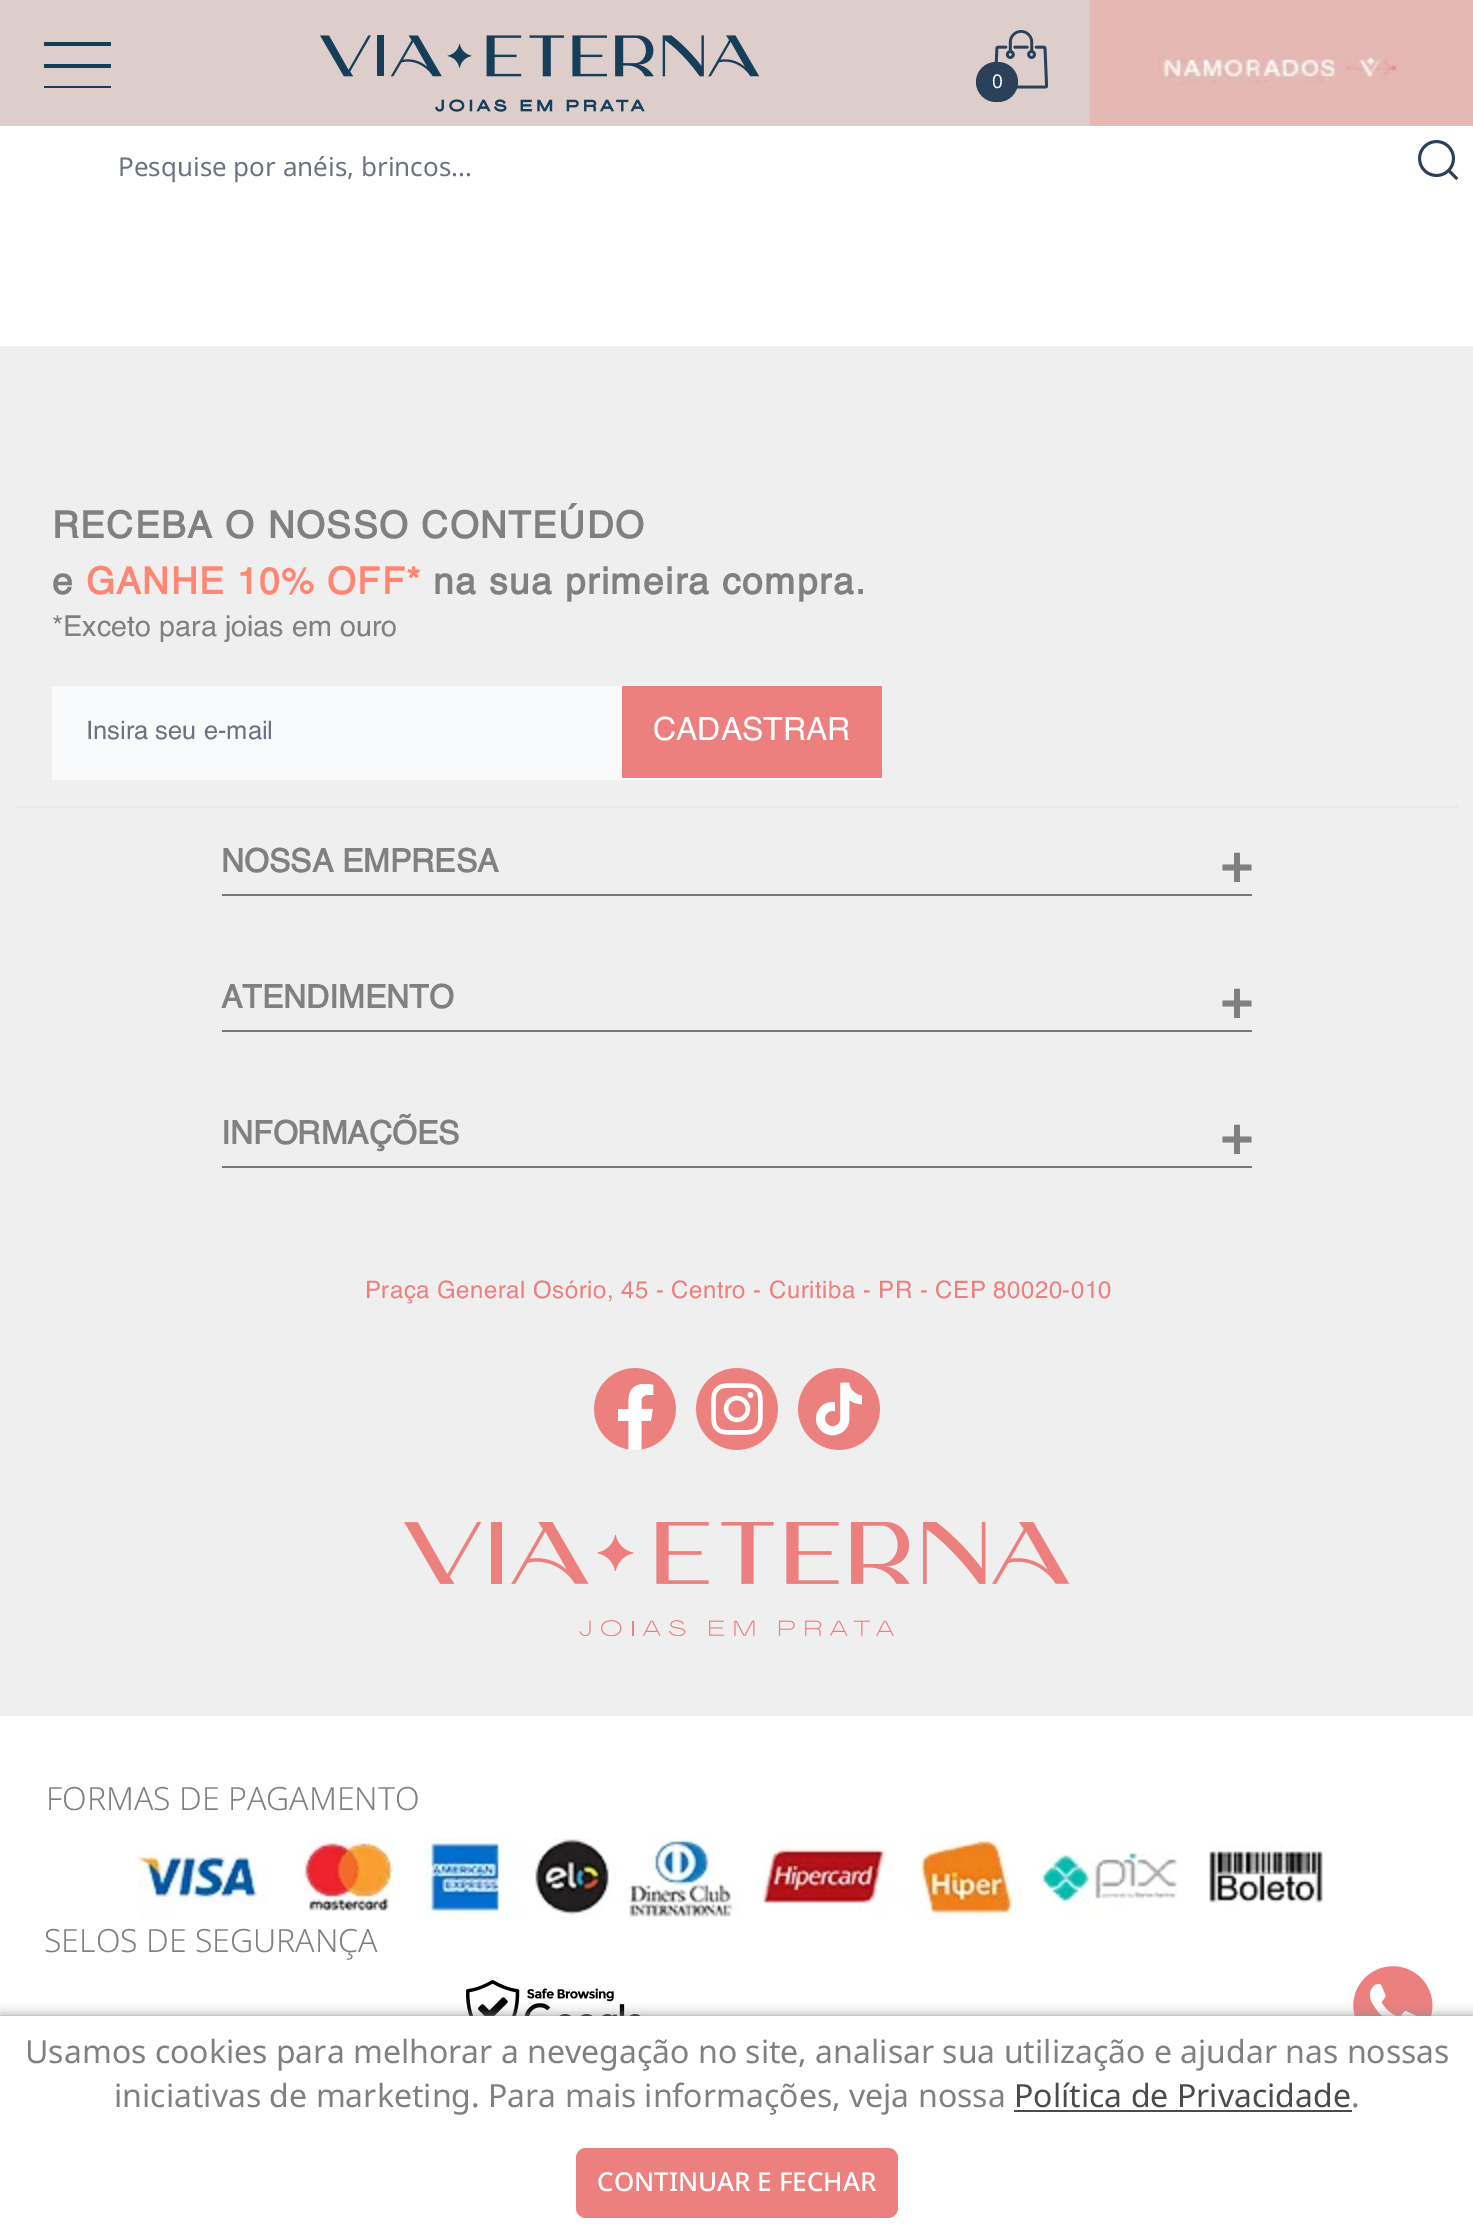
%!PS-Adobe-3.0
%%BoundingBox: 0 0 1473 2232
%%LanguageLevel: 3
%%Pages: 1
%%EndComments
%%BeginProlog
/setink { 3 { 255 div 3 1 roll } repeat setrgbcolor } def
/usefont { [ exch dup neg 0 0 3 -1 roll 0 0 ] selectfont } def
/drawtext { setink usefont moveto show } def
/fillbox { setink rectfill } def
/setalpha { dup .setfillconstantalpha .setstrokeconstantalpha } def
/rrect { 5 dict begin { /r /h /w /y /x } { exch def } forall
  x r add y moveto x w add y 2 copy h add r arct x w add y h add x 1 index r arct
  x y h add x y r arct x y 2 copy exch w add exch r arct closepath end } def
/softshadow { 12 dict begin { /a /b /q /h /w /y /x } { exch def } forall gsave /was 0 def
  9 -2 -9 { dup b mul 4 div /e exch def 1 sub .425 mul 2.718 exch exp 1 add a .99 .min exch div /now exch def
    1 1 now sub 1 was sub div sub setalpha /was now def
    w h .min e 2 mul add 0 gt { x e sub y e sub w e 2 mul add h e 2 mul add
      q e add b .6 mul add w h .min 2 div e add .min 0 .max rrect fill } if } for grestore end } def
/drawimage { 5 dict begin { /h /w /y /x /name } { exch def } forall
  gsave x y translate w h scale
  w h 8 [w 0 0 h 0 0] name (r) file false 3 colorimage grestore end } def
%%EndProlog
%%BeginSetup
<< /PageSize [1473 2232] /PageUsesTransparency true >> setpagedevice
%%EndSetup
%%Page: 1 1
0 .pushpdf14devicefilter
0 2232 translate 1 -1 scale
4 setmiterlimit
0 0 1473 2232 255 255 255 fillbox
0 0 1090 126 221 206 204 fillbox
44 42 67 4 23 62 89 fillbox
44 64 67 4 23 62 89 fillbox
44 86 67 2 23 62 89 fillbox
(assets/img1.rgb) 320 35 440 77 drawimage
(assets/img2.rgb) 994 30 54 59 drawimage
43 64 89 setink
976 62 42 40 20 rrect fill
(0) 992 88 /NotoSans-Regular 19 255 255 255 drawtext
(Pesquise por anéis, brincos...) 118 176 /NotoSans-Regular 26 107 114 128 drawtext
(assets/img3.rgb) 1418 140 40 40 drawimage
1090 0 383 126 229 184 179 fillbox
(assets/img4.rgb) 1158 50 242 35 drawimage
0 346 1473 1370 239 239 239 fillbox
16 806 1442 2 229 231 235 fillbox
/Helvetica-Bold 37 usefont
128 128 128 setink
52 538 moveto 0.5 0 32 1.5 0 (RECEBA O NOSSO CONTEÚDO) awidthshow
52 594 moveto 1.5 0 (e) ashow
255 134 114 setink
86 594 moveto 1.5 0 (GANHE 10% OFF*) ashow
128 128 128 setink
433 594 moveto 1.5 0 (na sua primeira compra.) ashow
(*Exceto para joias em ouro) 52 636 /Helvetica-Regular 28.75 128 128 128 drawtext
52 686 830 94 249 250 251 fillbox
(Insira seu e-mail) 86 739 /Helvetica-Regular 25.5 107 114 128 drawtext
622 686 260 92 235 128 127 fillbox
(CADASTRAR) 653 740 /Helvetica-Regular 32 255 255 255 drawtext
222 894 1030 2 119 119 119 fillbox
(NOSSA EMPRESA) 221 872 /Helvetica-Bold 32 128 128 128 drawtext
/Helvetica-Bold 54 usefont
1220 882 moveto 1 0 (+) ashow
222 1030 1030 2 119 119 119 fillbox
(ATENDIMENTO) 221 1008 /Helvetica-Bold 32 128 128 128 drawtext
/Helvetica-Bold 54 usefont
1220 1018 moveto 1 0 (+) ashow
222 1166 1030 2 119 119 119 fillbox
(INFORMAÇÕES) 221 1144 /Helvetica-Bold 32 128 128 128 drawtext
/Helvetica-Bold 54 usefont
1220 1154 moveto 1 0 (+) ashow
/Helvetica-Regular 24 usefont
235 128 127 setink
365 1298 moveto 0.48 0 (Praça General Osório, 45 - Centro - Curitiba - PR - CEP 80020-010) ashow
(assets/img5.rgb) 594 1368 82 82 drawimage
(assets/img6.rgb) 696 1368 82 82 drawimage
(assets/img7.rgb) 798 1368 82 82 drawimage
(assets/img8.rgb) 404 1522 666 114 drawimage
(FORMAS DE PAGAMENTO) 46 1810 /NotoSans-Light 32 128 128 128 drawtext
(assets/img9.rgb) 138 1838 1185 80 drawimage
(SELOS DE SEGURANÇA) 44 1952 /NotoSans-Light 32 128 128 128 drawtext
(assets/img10.rgb) 466 1980 175 36 drawimage
(assets/img11.rgb) 1353 1966 80 50 drawimage
142 142 142 setink
0 2016 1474 216 0 6 1 softshadow
0 2016 1473 216 255 255 255 fillbox
(Usamos cookies para melhorar a nevegação no site, analisar sua utilização e ajudar nas nossas) 25 2063 /NotoSans-Regular 32 128 128 128 drawtext
(iniciativas de marketing. Para mais informações, veja nossa) 114 2107 /NotoSans-Regular 32 128 128 128 drawtext
(Política de Privacidade) 1014 2107 /NotoSans-Regular 32 75 75 75 drawtext
1014 2110 338 2 75 75 75 fillbox
(.) 1351 2107 /NotoSans-Regular 32 128 128 128 drawtext
235 128 127 setink
576 2148 322 70 10 rrect fill
(CONTINUAR E FECHAR) 597 2191 /NotoSans-Medium 26 255 255 255 drawtext
.poppdf14devicefilter showpage
%%EOF
